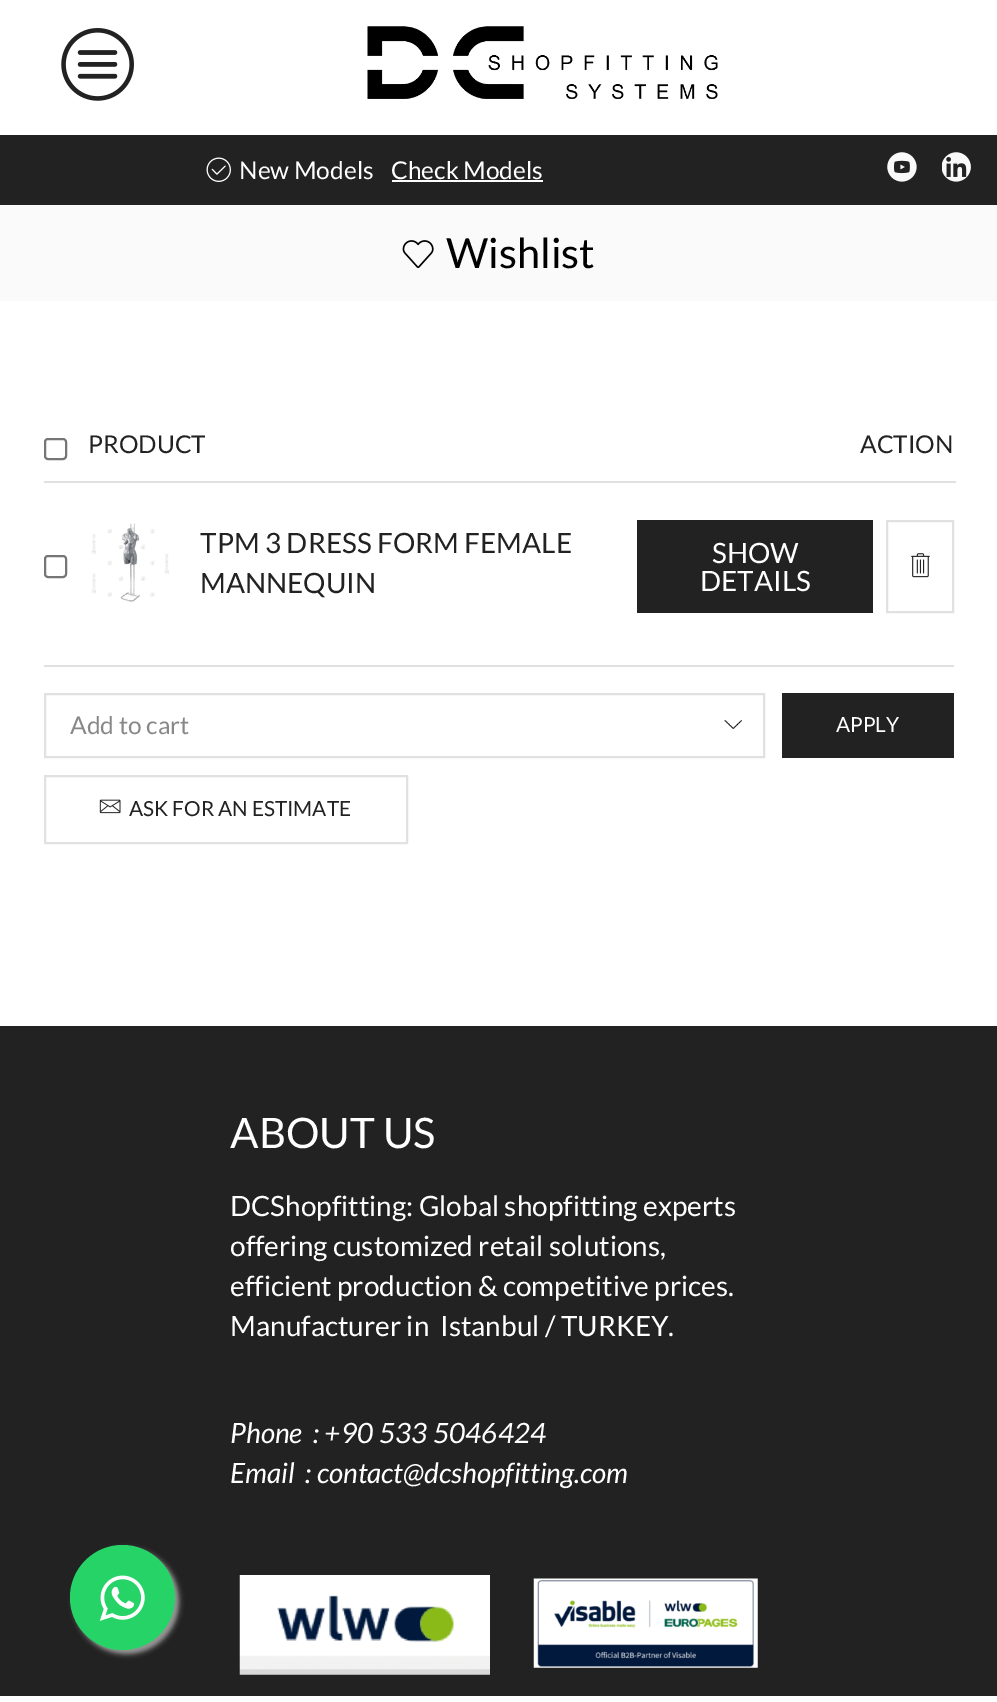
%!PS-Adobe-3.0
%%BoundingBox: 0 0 997 1702
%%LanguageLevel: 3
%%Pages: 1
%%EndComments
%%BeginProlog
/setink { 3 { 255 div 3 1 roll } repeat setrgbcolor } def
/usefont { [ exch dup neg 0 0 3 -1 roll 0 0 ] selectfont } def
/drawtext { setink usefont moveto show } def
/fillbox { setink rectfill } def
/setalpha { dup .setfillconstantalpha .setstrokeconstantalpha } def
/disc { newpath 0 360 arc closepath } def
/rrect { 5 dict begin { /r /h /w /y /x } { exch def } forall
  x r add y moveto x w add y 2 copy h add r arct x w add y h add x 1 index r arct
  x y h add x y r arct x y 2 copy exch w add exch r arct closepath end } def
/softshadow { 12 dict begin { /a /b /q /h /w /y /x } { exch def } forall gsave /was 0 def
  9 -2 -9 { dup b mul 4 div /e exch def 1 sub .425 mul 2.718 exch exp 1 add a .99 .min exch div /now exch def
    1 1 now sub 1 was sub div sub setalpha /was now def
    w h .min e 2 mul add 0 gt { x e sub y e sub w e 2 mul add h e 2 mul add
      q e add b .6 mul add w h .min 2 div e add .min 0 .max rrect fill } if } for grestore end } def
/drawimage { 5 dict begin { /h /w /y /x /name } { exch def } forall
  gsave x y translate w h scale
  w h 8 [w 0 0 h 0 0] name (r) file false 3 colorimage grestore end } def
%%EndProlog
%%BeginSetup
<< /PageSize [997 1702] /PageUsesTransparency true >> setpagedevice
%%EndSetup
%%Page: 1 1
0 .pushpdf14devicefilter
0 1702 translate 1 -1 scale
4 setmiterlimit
0 0 997 1702 255 255 255 fillbox
(assets/img1.rgb) 61 28 73 73 drawimage
(assets/img2.rgb) 367 26 351 73 drawimage
0 135 997 70 34 34 34 fillbox
(assets/img3.rgb) 206 157 25 25 drawimage
(New Models) 239 179 /Lato-Regular 24.5 255 255 255 drawtext
(Check Models) 391 179 /Lato-Regular 24.5 255 255 255 drawtext
392 180 151 2 255 255 255 fillbox
(assets/img4.rgb) 887 152 30 30 drawimage
(assets/img5.rgb) 942 152 29 30 drawimage
0 205 997 96 250 250 250 fillbox
(assets/img6.rgb) 402 240 32 29 drawimage
(Wishlist) 446 268 /Lato-Regular 41.5 0 0 0 drawtext
44 481 912 2 225 225 225 fillbox
118 118 118 setink
2 setlinewidth
45 439 21 20 3 rrect stroke
(PRODUCT) 88 453 /Lato-Regular 24.5 34 34 34 drawtext
(ACTION) 860 453 /Lato-Regular 24.5 34 34 34 drawtext
118 118 118 setink
45 556 21 21 3 rrect stroke
(assets/img7.rgb) 91 523 78 79 drawimage
(TPM 3 DRESS FORM FEMALE) 200 553 /Lato-Regular 28 34 34 34 drawtext
(MANNEQUIN) 200 593 /Lato-Regular 28 34 34 34 drawtext
637 520 236 93 34 34 34 fillbox
(SHOW) 712 563 /Lato-Regular 28 255 255 255 drawtext
(DETAILS) 700 591 /Lato-Regular 28 255 255 255 drawtext
225 225 225 setink
887 521 66 91 rectstroke
(assets/img8.rgb) 911 553 19 25 drawimage
44 665 910 2 225 225 225 fillbox
(assets/img9.rgb) 724 720 18 9 drawimage
45 694 719 63 rectstroke
(Add to cart) 70 734 /Lato-Regular 24.5 136 136 136 drawtext
782 693 172 65 34 34 34 fillbox
(APPLY) 836 732 /Lato-Regular 20.75 255 255 255 drawtext
225 225 225 setink
45 776 362 67 rectstroke
(assets/img10.rgb) 99 799 22 15 drawimage
(ASK FOR AN ESTIMATE) 129 816 /Lato-Regular 20.75 34 34 34 drawtext
0 1026 997 670 34 34 34 fillbox
(ABOUT US) 230 1148 /Lato-Regular 42 255 255 255 drawtext
(DCShopfitting: Global shopfitting experts) 230 1216 /Lato-Regular 28 255 255 255 drawtext
(offering customized retail solutions,) 230 1256 /Lato-Regular 28 255 255 255 drawtext
(efficient production & competitive prices.) 230 1296 /Lato-Regular 28 255 255 255 drawtext
(Manufacturer in  Istanbul / TURKEY.) 230 1336 /Lato-Regular 28 255 255 255 drawtext
(Phone  : +90 533 5046424) 230 1443 /Lato-Italic 28 255 255 255 drawtext
(Email  : contact@dcshopfitting.com) 230 1483 /Lato-Italic 28 255 255 255 drawtext
(assets/img11.rgb) 239 1575 251 100 drawimage
(assets/img12.rgb) 533 1578 225 90 drawimage
153 153 153 setink
74 1549 105 105 52.5 2.5 1 softshadow
37 211 102 setink
122.5 1597.5 52.5 disc fill
(assets/img13.rgb) 99 1575 46 46 drawimage
.poppdf14devicefilter showpage
%%EOF
